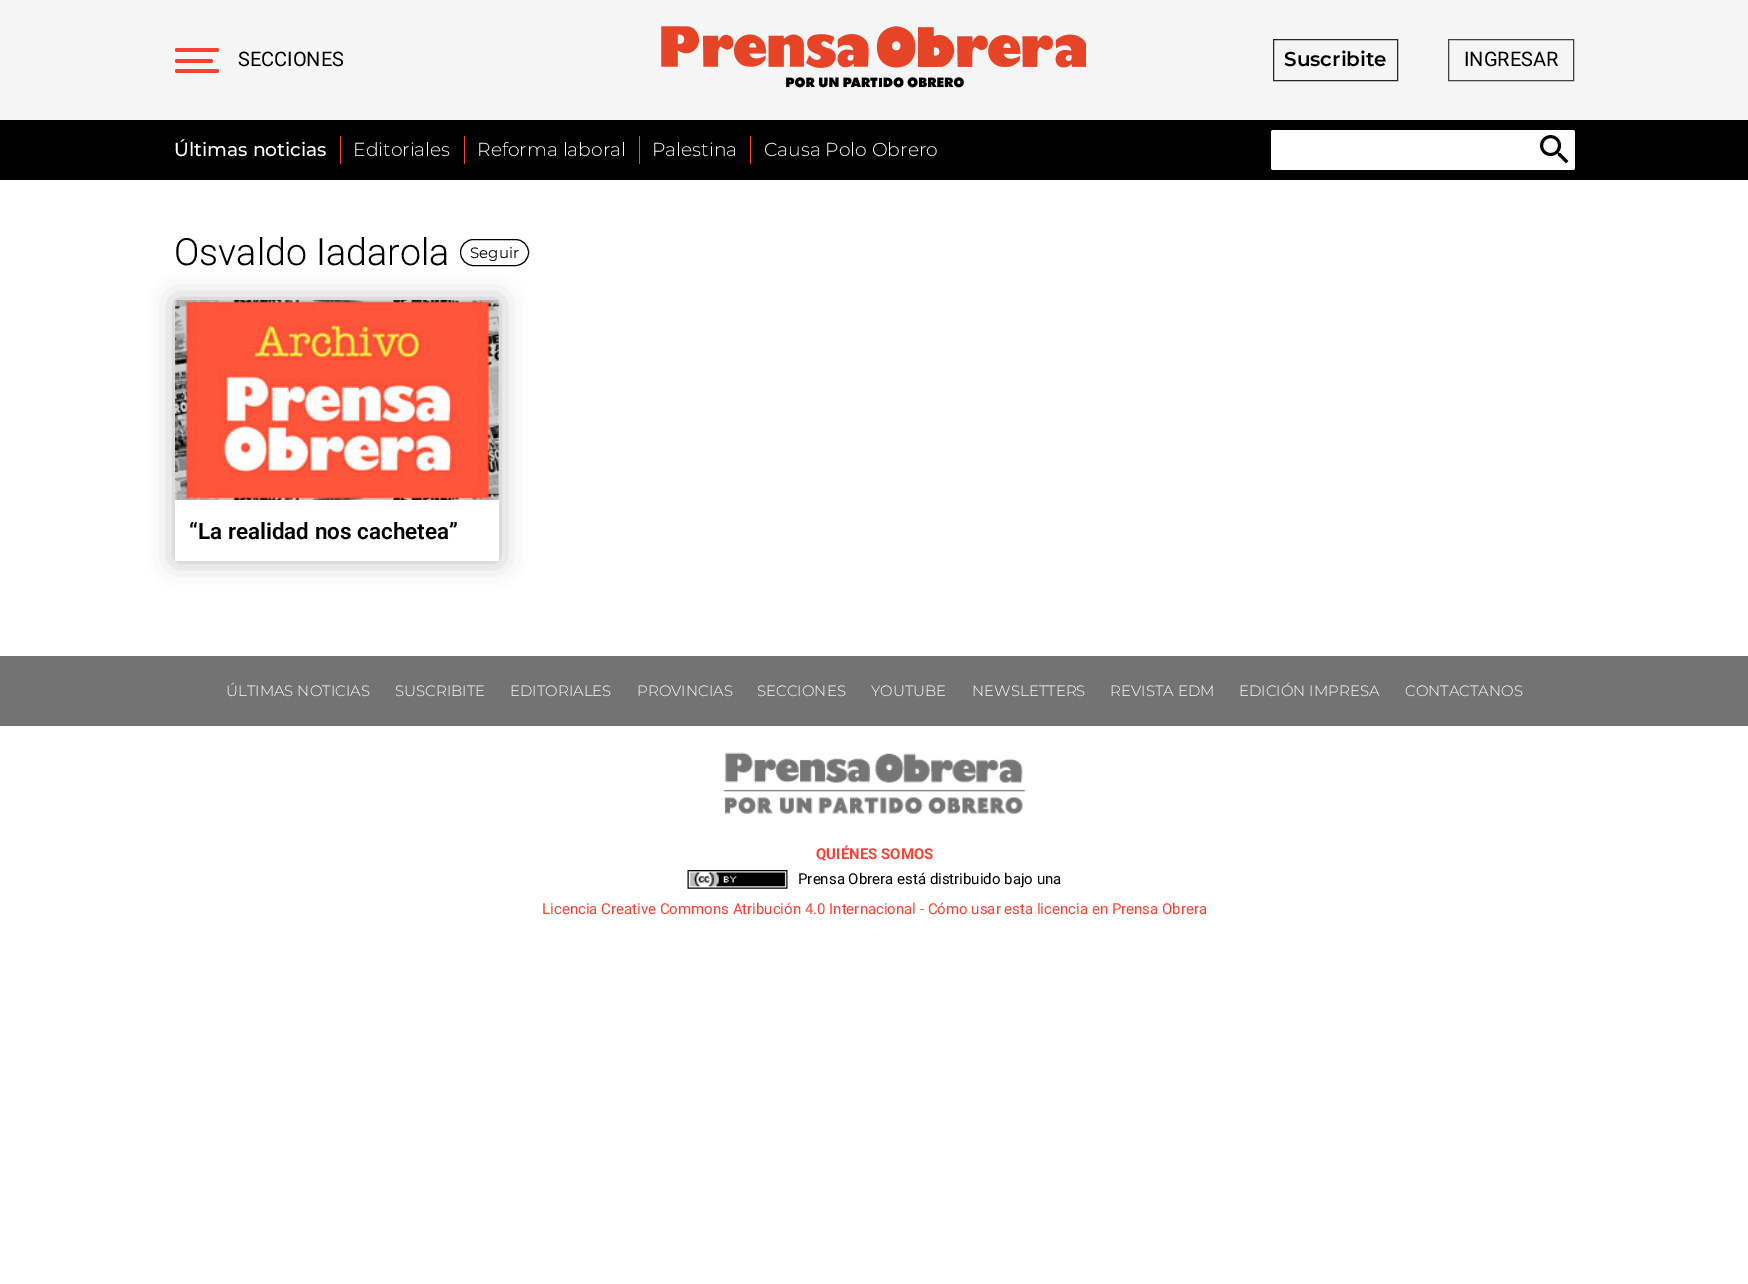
%!PS-Adobe-3.0
%%BoundingBox: 0 0 1748 1284
%%LanguageLevel: 3
%%Pages: 1
%%EndComments
%%BeginProlog
/setink { 3 { 255 div 3 1 roll } repeat setrgbcolor } def
/usefont { [ exch dup neg 0 0 3 -1 roll 0 0 ] selectfont } def
/drawtext { setink usefont moveto show } def
/fillbox { setink rectfill } def
/setalpha { dup .setfillconstantalpha .setstrokeconstantalpha } def
/rrect { 5 dict begin { /r /h /w /y /x } { exch def } forall
  x r add y moveto x w add y 2 copy h add r arct x w add y h add x 1 index r arct
  x y h add x y r arct x y 2 copy exch w add exch r arct closepath end } def
/softshadow { 12 dict begin { /a /b /q /h /w /y /x } { exch def } forall gsave /was 0 def
  9 -2 -9 { dup b mul 4 div /e exch def 1 sub .425 mul 2.718 exch exp 1 add a .99 .min exch div /now exch def
    1 1 now sub 1 was sub div sub setalpha /was now def
    w h .min e 2 mul add 0 gt { x e sub y e sub w e 2 mul add h e 2 mul add
      q e add b .6 mul add w h .min 2 div e add .min 0 .max rrect fill } if } for grestore end } def
/drawimage { 5 dict begin { /h /w /y /x /name } { exch def } forall
  gsave x y translate w h scale
  w h 8 [w 0 0 h 0 0] name (r) file false 3 colorimage grestore end } def
%%EndProlog
%%BeginSetup
<< /PageSize [1748 1284] /PageUsesTransparency true >> setpagedevice
%%EndSetup
%%Page: 1 1
0 .pushpdf14devicefilter
0 1284 translate 1 -1 scale
4 setmiterlimit
0 0 1748 1284 255 255 255 fillbox
0 0 1748 120 245 245 245 fillbox
244 67 54 setink
175 48 44 4 2 rrect fill
175 59 38 4 2 rrect fill
175 69 44 4 2 rrect fill
(SECCIONES) 238 66 /Roboto-Regular 20 0 0 0 drawtext
(assets/img1.rgb) 661 26 425 62 drawimage
38 38 38 setink
1273.5 39.5 124 41 rectstroke
(Suscribite) 1284 66 /Montserrat-SemiBold 20 0 0 0 drawtext
64 64 64 setink
1448.5 39.5 125 41 rectstroke
(INGRESAR) 1464 66 /Roboto-Regular 20 0 0 0 drawtext
0 120 1748 60 0 0 0 fillbox
(Últimas noticias) 174 156 /Montserrat-Medium 18.75 255 255 255 drawtext
340 136 1 28 244 67 54 fillbox
(Editoriales) 353 156 /Montserrat-Light 18.75 255 255 255 drawtext
464 136 1 28 244 67 54 fillbox
(Reforma laboral) 477 156 /Montserrat-Light 18.75 255 255 255 drawtext
639 136 1 28 244 67 54 fillbox
(Palestina) 652 156 /Montserrat-Light 18.75 255 255 255 drawtext
750 136 1 28 244 67 54 fillbox
(Causa Polo Obrero) 764 156 /Montserrat-Light 18.75 255 255 255 drawtext
1273.5 130 moveto 1535 130 lineto 1535 170 lineto 1273.5 170 lineto 1272 170 1271 169 1271 167.5 curveto 1271 132.5 lineto 1271 131 1272 130 1273.5 130 curveto closepath fill
1535 130 moveto 1572.5 130 lineto 1574 130 1575 131 1575 132.5 curveto 1575 167.5 lineto 1575 169 1574 170 1572.5 170 curveto 1535 170 lineto closepath fill
(assets/img2.rgb) 1540 135 29 29 drawimage
(Osvaldo Iadarola) 174 265 /Roboto-Light 37.5 0 0 0 drawtext
460.5 239.5 68 26 13 rrect stroke
(Seguir) 470 258 /Montserrat-Regular 15 0 0 0 drawtext
175 300 324 261 0 13 0.27 softshadow
175 300 324 261 255 255 255 fillbox
(assets/img3.rgb) 175 300 324 200 drawimage
(“La realidad nos cachetea”) 189 539 /Roboto-SemiBold 22.5 0 0 0 drawtext
0 656 1748 70 115 115 115 fillbox
(ÚLTIMAS NOTICIAS) 226 696 /Montserrat-Light 15 255 255 255 drawtext
(SUSCRIBITE) 395 696 /Montserrat-Light 15 255 255 255 drawtext
(EDITORIALES) 510 696 /Montserrat-Light 15 255 255 255 drawtext
(PROVINCIAS) 637 696 /Montserrat-Light 15 255 255 255 drawtext
(SECCIONES) 757 696 /Montserrat-Light 15 255 255 255 drawtext
(YOUTUBE) 871 696 /Montserrat-Light 15 255 255 255 drawtext
(NEWSLETTERS) 972 696 /Montserrat-Light 15 255 255 255 drawtext
(REVISTA EDM) 1110 696 /Montserrat-Light 15 255 255 255 drawtext
(EDICIÓN IMPRESA) 1239 696 /Montserrat-Light 15 255 255 255 drawtext
(CONTACTANOS) 1405 696 /Montserrat-Light 15 255 255 255 drawtext
(assets/img4.rgb) 723 752 303 62 drawimage
(QUIÉNES SOMOS) 816 859 /Roboto-Bold 15 244 67 54 drawtext
(assets/img5.rgb) 687 870 101 19 drawimage
(Prensa Obrera está distribuido bajo una) 798 884 /Roboto-Regular 15 0 0 0 drawtext
(Licencia Creative Commons Atribución 4.0 Internacional - Cómo usar esta licencia en Prensa Obrera) 542 914 /Roboto-Regular 15 244 67 54 drawtext
.poppdf14devicefilter showpage
%%EOF
